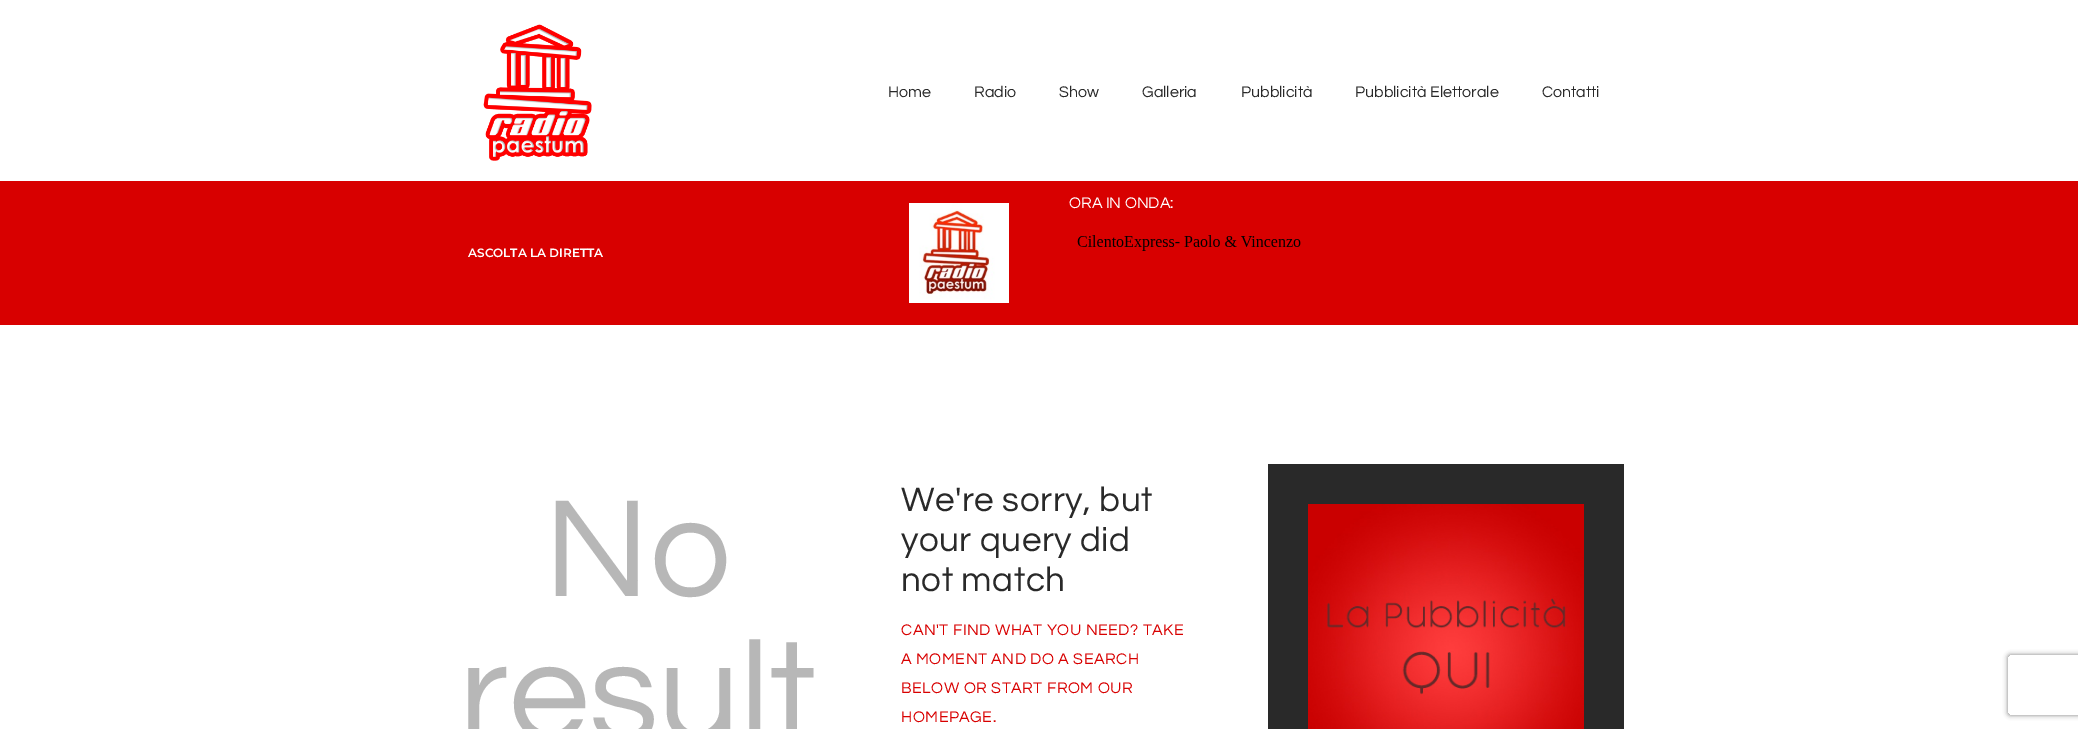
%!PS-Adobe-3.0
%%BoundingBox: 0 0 2078 729
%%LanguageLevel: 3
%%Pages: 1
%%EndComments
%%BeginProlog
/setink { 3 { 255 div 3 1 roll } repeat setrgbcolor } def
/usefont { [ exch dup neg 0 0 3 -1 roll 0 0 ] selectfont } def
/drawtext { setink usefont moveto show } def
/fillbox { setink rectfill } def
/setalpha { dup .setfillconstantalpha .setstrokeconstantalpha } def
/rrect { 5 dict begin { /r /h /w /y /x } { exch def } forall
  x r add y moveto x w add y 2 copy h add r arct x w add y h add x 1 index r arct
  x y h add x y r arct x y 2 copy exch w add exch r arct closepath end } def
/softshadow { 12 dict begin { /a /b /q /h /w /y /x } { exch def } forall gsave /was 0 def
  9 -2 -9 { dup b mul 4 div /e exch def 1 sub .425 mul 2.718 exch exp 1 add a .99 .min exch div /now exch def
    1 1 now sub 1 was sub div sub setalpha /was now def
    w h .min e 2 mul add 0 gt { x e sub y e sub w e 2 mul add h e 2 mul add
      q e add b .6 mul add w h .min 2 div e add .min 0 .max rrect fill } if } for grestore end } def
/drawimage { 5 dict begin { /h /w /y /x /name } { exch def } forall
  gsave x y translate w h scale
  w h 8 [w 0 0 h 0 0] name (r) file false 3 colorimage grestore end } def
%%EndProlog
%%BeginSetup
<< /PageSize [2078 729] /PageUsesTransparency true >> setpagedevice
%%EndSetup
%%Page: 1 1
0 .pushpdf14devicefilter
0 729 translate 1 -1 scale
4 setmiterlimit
0 0 2078 729 255 255 255 fillbox
(assets/img1.rgb) 483 24 109 137 drawimage
(Home) 888 97 /Questrial-Regular 16 41 41 41 drawtext
(Radio) 974 97 /Questrial-Regular 16 41 41 41 drawtext
(Show) 1059 97 /Questrial-Regular 16 41 41 41 drawtext
(Galleria) 1142 97 /Questrial-Regular 16 41 41 41 drawtext
(Pubblicità) 1241 97 /Questrial-Regular 16 41 41 41 drawtext
(Pubblicità Elettorale) 1355 97 /Questrial-Regular 16 41 41 41 drawtext
(Contatti) 1542 97 /Questrial-Regular 16 41 41 41 drawtext
0 181 2078 144 216 0 0 fillbox
(ASCOLTA LA DIRETTA) 468 257 /Montserrat-SemiBold 12 255 255 255 drawtext
(assets/img2.rgb) 909 203 100 100 drawimage
(ORA IN ONDA:) 1069 208 /Questrial-Regular 16 255 255 255 drawtext
(assets/img3.rgb) 1077 235 224 16 drawimage
(No) 544 596 /Questrial-Regular 144 183 183 183 drawtext
(result) 459 740 /Questrial-Regular 144 183 183 183 drawtext
/Questrial-Regular 35 usefont
41 41 41 setink
901 511 moveto 0.5 0 (We're sorry, but) ashow
901 551 moveto 0.5 0 (your query did) ashow
901 591 moveto 0.5 0 (not match) ashow
/Questrial-Regular 16 usefont
216 0 0 setink
901 635 moveto 0.5 0 (CAN'T FIND WHAT YOU NEED? TAKE) ashow
901 664 moveto 0.5 0 (A MOMENT AND DO A SEARCH) ashow
901 693 moveto 0.5 0 (BELOW OR START FROM OUR) ashow
901 722 moveto 0.5 0 (HOMEPAGE.) ashow
1268 464 356 265 41 41 41 fillbox
(assets/img4.rgb) 1308 504 276 225 drawimage
gsave
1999 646 moveto 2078 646 lineto 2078 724 lineto 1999 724 lineto closepath 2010 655 moveto 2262 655 lineto 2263 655 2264 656 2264 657 curveto 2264 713 lineto 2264 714 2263 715 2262 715 curveto 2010 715 lineto 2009 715 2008 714 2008 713 curveto 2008 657 lineto 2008 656 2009 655 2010 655 curveto closepath eoclip newpath
128 128 128 setink
2008 655 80 60 2 2.5 1 softshadow
grestore
.poppdf14devicefilter showpage
%%EOF
